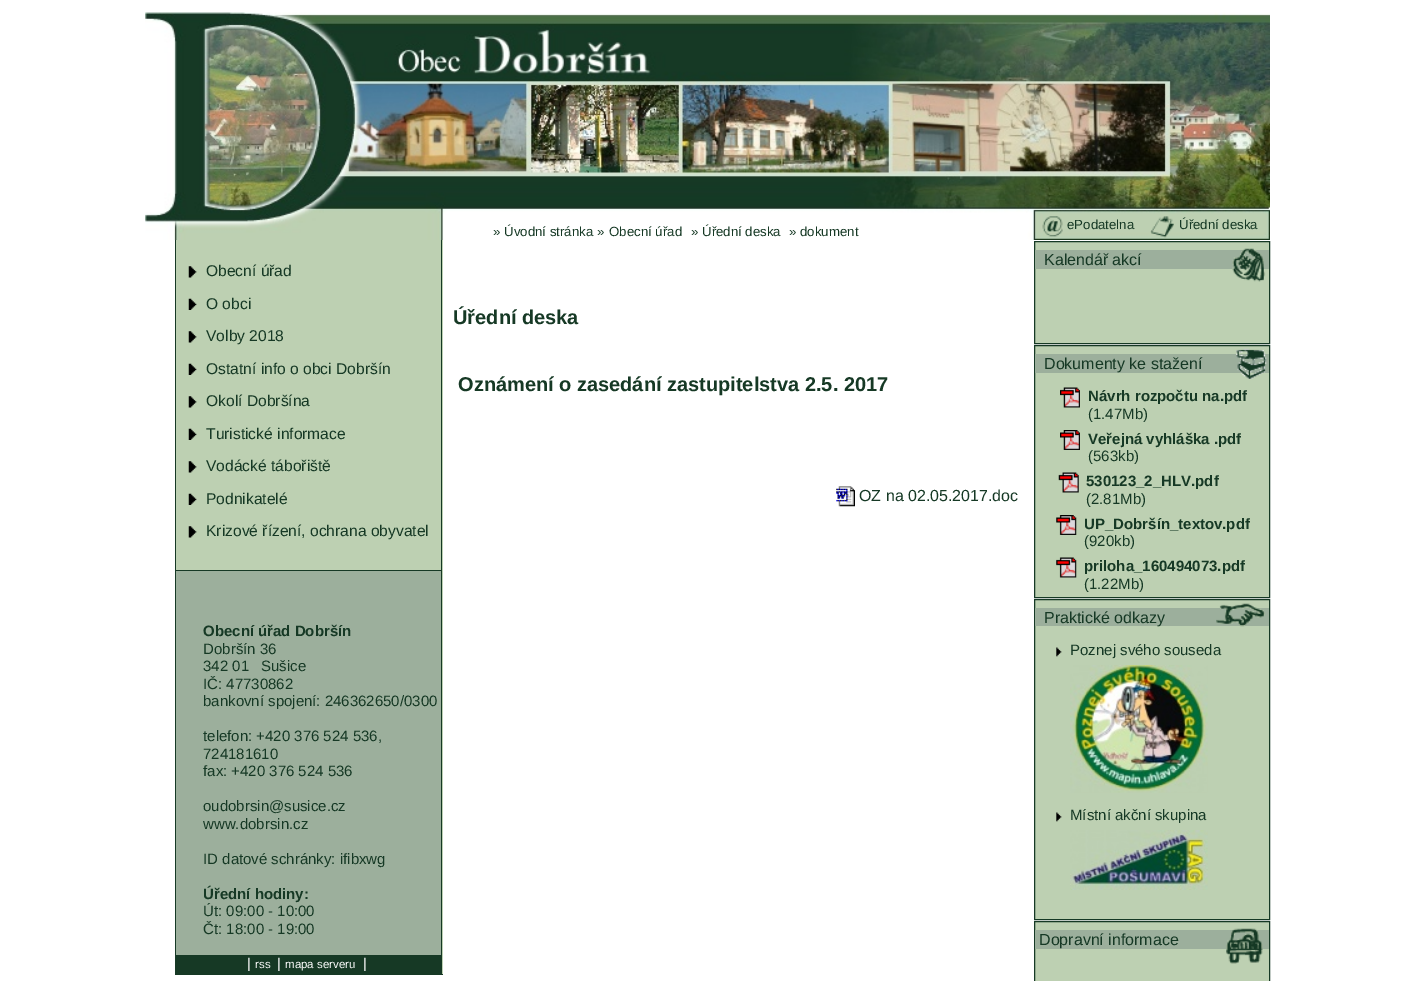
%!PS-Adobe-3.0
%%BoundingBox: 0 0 1419 981
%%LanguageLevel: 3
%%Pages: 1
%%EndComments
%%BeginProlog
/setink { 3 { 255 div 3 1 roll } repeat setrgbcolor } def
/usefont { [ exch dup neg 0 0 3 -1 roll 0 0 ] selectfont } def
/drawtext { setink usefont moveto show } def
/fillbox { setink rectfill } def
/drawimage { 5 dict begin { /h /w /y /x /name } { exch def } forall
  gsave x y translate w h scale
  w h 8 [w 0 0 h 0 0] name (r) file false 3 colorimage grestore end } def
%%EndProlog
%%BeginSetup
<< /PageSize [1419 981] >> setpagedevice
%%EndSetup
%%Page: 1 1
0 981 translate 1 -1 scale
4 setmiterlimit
0 0 1419 981 255 255 255 fillbox
(assets/img1.rgb) 145 12 1125 228 drawimage
(») 493 236 /LiberationSans-Regular 13.25 22 57 37 drawtext
(Úvodní stránka ») 504 236 /LiberationSans-Regular 13.25 22 57 37 drawtext
(Obecní úřad) 609 236 /LiberationSans-Regular 13.25 22 57 37 drawtext
(») 691 236 /LiberationSans-Regular 13.25 22 57 37 drawtext
(Úřední deska) 702 236 /LiberationSans-Regular 13.25 22 57 37 drawtext
(» dokument) 789 236 /LiberationSans-Regular 13.25 22 57 37 drawtext
(assets/img2.rgb) 1042 216 21 21 drawimage
(ePodatelna) 1067 229 /LiberationSans-Regular 13.25 22 57 37 drawtext
(assets/img3.rgb) 1150 216 24 22 drawimage
(Úřední deska) 1179 229 /LiberationSans-Regular 13.25 22 57 37 drawtext
176 240 267 734 189 208 178 fillbox
441 240 1 735 22 57 37 fillbox
175 974 268 1 22 57 37 fillbox
175 240 1 735 22 57 37 fillbox
(assets/img4.rgb) 188 266 9 12 drawimage
(Obecní úřad) 206 276 /LiberationSans-Regular 15.6 22 57 37 drawtext
(assets/img5.rgb) 188 298 9 12 drawimage
(O obci) 206 309 /LiberationSans-Regular 15.6 22 57 37 drawtext
(assets/img4.rgb) 188 331 9 12 drawimage
(Volby 2018) 206 341 /LiberationSans-Regular 15.6 22 57 37 drawtext
(assets/img5.rgb) 188 363 9 12 drawimage
(Ostatní info o obci Dobršín) 206 374 /LiberationSans-Regular 15.6 22 57 37 drawtext
(assets/img4.rgb) 188 396 9 12 drawimage
(Okolí Dobršína) 206 406 /LiberationSans-Regular 15.6 22 57 37 drawtext
(assets/img5.rgb) 188 428 9 12 drawimage
(Turistické informace) 206 439 /LiberationSans-Regular 15.6 22 57 37 drawtext
(assets/img4.rgb) 188 461 9 12 drawimage
(Vodácké tábořiště) 206 471 /LiberationSans-Regular 15.6 22 57 37 drawtext
(assets/img5.rgb) 188 493 9 12 drawimage
(Podnikatelé) 206 504 /LiberationSans-Regular 15.6 22 57 37 drawtext
(assets/img4.rgb) 188 526 9 12 drawimage
(Krizové řízení, ochrana obyvatel) 206 536 /LiberationSans-Regular 15.6 22 57 37 drawtext
176 571 265 384 156 175 156 fillbox
176 570 265 1 22 57 37 fillbox
(Obecní úřad Dobršín) 203 636 /LiberationSans-Bold 15 22 57 37 drawtext
(Dobršín 36) 203 654 /LiberationSans-Regular 15 22 57 37 drawtext
(342 01) 203 671 /LiberationSans-Regular 15 22 57 37 drawtext
(Sušice) 261 671 /LiberationSans-Regular 15 22 57 37 drawtext
(IČ: 47730862) 203 689 /LiberationSans-Regular 15 22 57 37 drawtext
(bankovní spojení: 246362650/0300) 203 706 /LiberationSans-Regular 15 22 57 37 drawtext
(telefon: +420 376 524 536,) 203 741 /LiberationSans-Regular 15 22 57 37 drawtext
(724181610) 203 759 /LiberationSans-Regular 15 22 57 37 drawtext
(fax: +420 376 524 536) 203 776 /LiberationSans-Regular 15 22 57 37 drawtext
(oudobrsin@susice.cz) 203 811 /LiberationSans-Regular 15 22 57 37 drawtext
(www.dobrsin.cz) 203 829 /LiberationSans-Regular 15 22 57 37 drawtext
(ID datové schránky: ifibxwg) 203 864 /LiberationSans-Regular 15 22 57 37 drawtext
(Úřední hodiny:) 203 899 /LiberationSans-Bold 15 22 57 37 drawtext
(Út: 09:00 - 10:00) 203 916 /LiberationSans-Regular 15 22 57 37 drawtext
(Čt: 18:00 - 19:00) 203 934 /LiberationSans-Regular 15 22 57 37 drawtext
176 955 265 19 22 57 37 fillbox
(|) 247 968 /LiberationSans-Regular 14 255 255 255 drawtext
(rss) 255 968 /LiberationSans-Regular 11.5 255 255 255 drawtext
(|) 277 968 /LiberationSans-Regular 14 255 255 255 drawtext
(mapa serveru) 285 968 /LiberationSans-Regular 11.5 255 255 255 drawtext
(|) 363 968 /LiberationSans-Regular 14 255 255 255 drawtext
(Úřední deska) 453 324 /LiberationSans-Bold 20 22 57 37 drawtext
(Oznámení o zasedání zastupitelstva 2.5. 2017) 458 391 /LiberationSans-Bold 20 22 57 37 drawtext
(assets/img6.rgb) 836 486 19 21 drawimage
(OZ na 02.05.2017.doc) 859 501 /LiberationSans-Regular 16 22 57 37 drawtext
189 208 178 setink
1034.5 241.5 moveto 1269.5 241.5 lineto 1269.5 343.5 lineto 1034.5 343.5 lineto closepath gsave fill grestore
22 57 37 setink
stroke
1035 250 234 19 156 175 156 fillbox
(Kalendář akcí) 1044 265 /LiberationSans-Regular 16 22 57 37 drawtext
(assets/img7.rgb) 1232 248 34 34 drawimage
189 208 178 setink
1034.5 345.5 moveto 1269.5 345.5 lineto 1269.5 597.5 lineto 1034.5 597.5 lineto closepath gsave fill grestore
22 57 37 setink
stroke
1035 354 234 19 156 175 156 fillbox
(Dokumenty ke stažení) 1044 369 /LiberationSans-Regular 16 22 57 37 drawtext
(assets/img8.rgb) 1236 348 31 31 drawimage
(assets/img9.rgb) 1060 387 20 21 drawimage
(Návrh rozpočtu na.pdf) 1088 401 /LiberationSans-Bold 15 22 57 37 drawtext
(\(1.47Mb\)) 1088 419 /LiberationSans-Regular 15 22 57 37 drawtext
(assets/img10.rgb) 1060 430 20 20 drawimage
(Veřejná vyhláška .pdf) 1088 444 /LiberationSans-Bold 15 22 57 37 drawtext
(\(563kb\)) 1088 461 /LiberationSans-Regular 15 22 57 37 drawtext
(assets/img11.rgb) 1058 472 21 21 drawimage
(530123_2_HLV.pdf) 1086 486 /LiberationSans-Bold 15 22 57 37 drawtext
(\(2.81Mb\)) 1086 504 /LiberationSans-Regular 15 22 57 37 drawtext
(assets/img12.rgb) 1056 515 21 20 drawimage
(UP_Dobršín_textov.pdf) 1084 529 /LiberationSans-Bold 15 22 57 37 drawtext
(\(920kb\)) 1084 546 /LiberationSans-Regular 15 22 57 37 drawtext
(assets/img13.rgb) 1056 557 21 21 drawimage
(priloha_160494073.pdf) 1084 571 /LiberationSans-Bold 15 22 57 37 drawtext
(\(1.22Mb\)) 1084 589 /LiberationSans-Regular 15 22 57 37 drawtext
189 208 178 setink
1034.5 599.5 moveto 1269.5 599.5 lineto 1269.5 919.5 lineto 1034.5 919.5 lineto closepath gsave fill grestore
22 57 37 setink
stroke
1035 608 234 18 156 175 156 fillbox
(Praktické odkazy) 1044 623 /LiberationSans-Regular 16 22 57 37 drawtext
(assets/img14.rgb) 1216 603 49 24 drawimage
(assets/img15.rgb) 1056 647 6 10 drawimage
(Poznej svého souseda) 1070 655 /LiberationSans-Regular 15 22 57 37 drawtext
(assets/img16.rgb) 1070 665 138 128 drawimage
(assets/img15.rgb) 1056 812 6 10 drawimage
(Místní akční skupina) 1070 820 /LiberationSans-Regular 15 22 57 37 drawtext
(assets/img17.rgb) 1070 830 138 60 drawimage
189 208 178 setink
1034.5 921.5 moveto 1269.5 921.5 lineto 1269.5 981.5 lineto 1034.5 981.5 lineto closepath gsave fill grestore
22 57 37 setink
stroke
1035 930 234 19 156 175 156 fillbox
(Dopravní informace) 1039 945 /LiberationSans-Regular 16 22 57 37 drawtext
(assets/img18.rgb) 1226 928 37 36 drawimage
showpage
%%EOF
